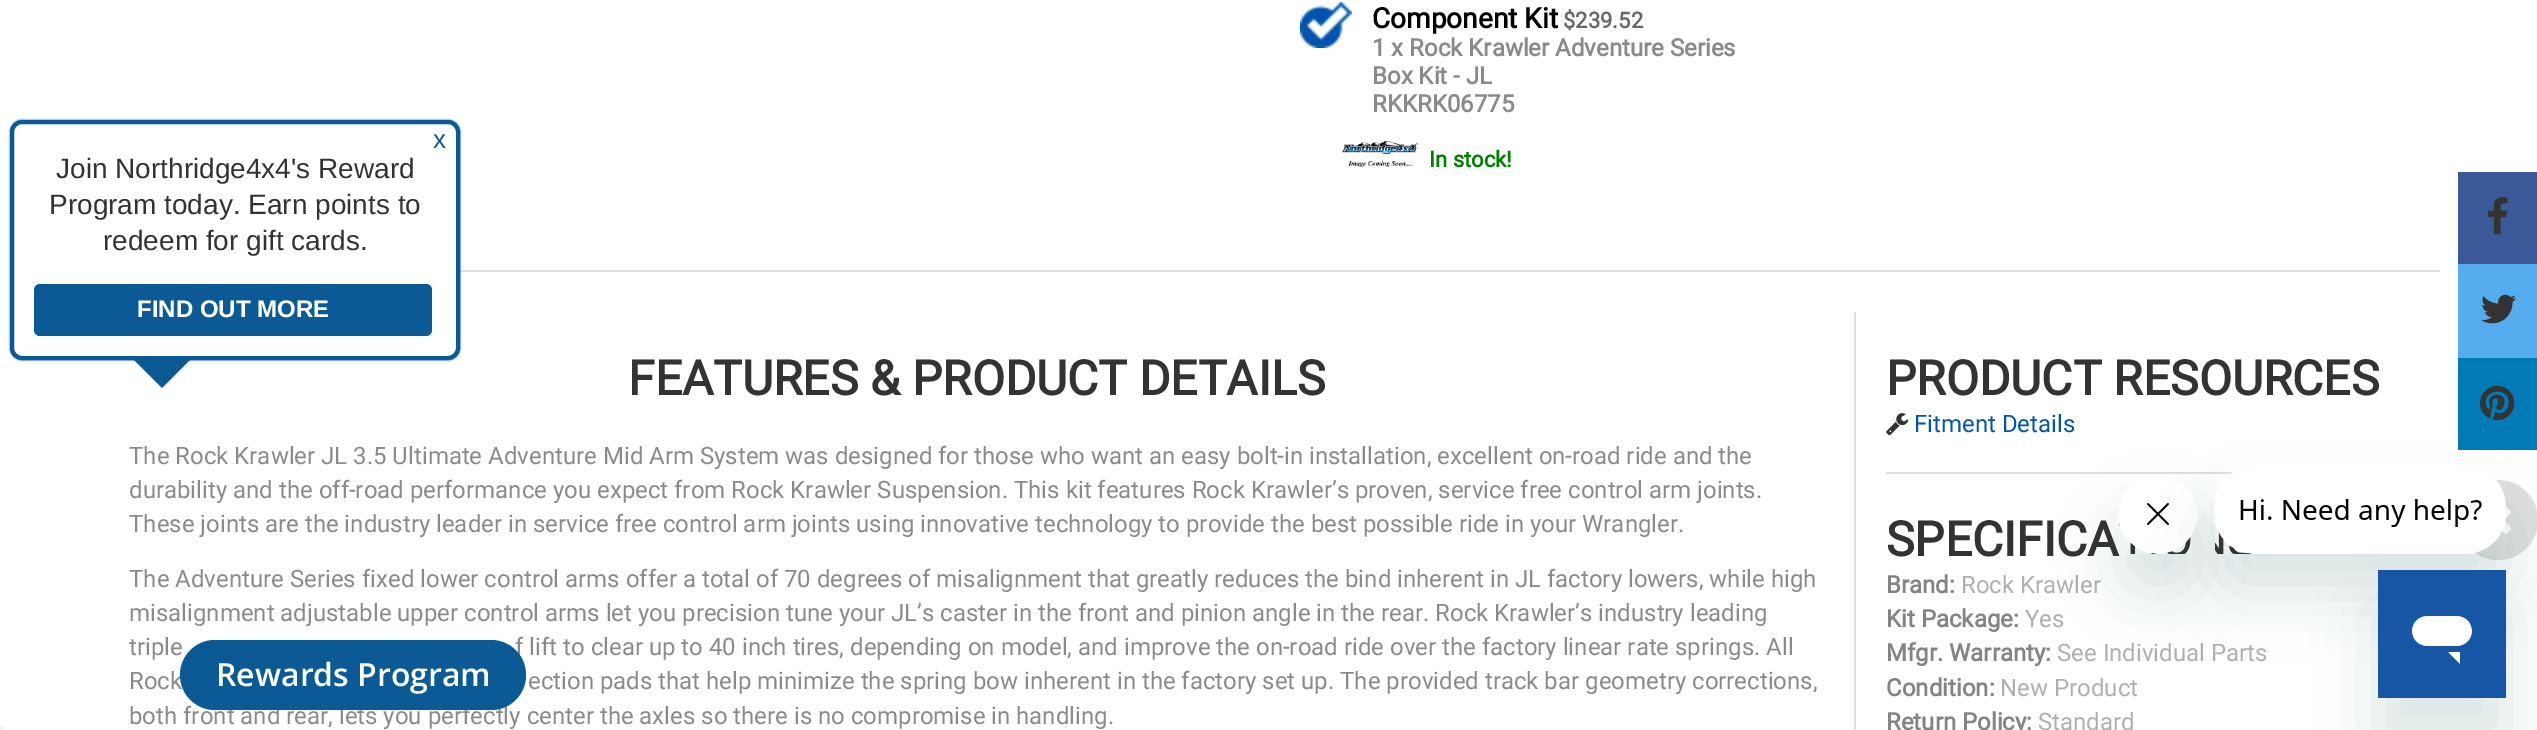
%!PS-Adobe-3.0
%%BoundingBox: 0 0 2537 730
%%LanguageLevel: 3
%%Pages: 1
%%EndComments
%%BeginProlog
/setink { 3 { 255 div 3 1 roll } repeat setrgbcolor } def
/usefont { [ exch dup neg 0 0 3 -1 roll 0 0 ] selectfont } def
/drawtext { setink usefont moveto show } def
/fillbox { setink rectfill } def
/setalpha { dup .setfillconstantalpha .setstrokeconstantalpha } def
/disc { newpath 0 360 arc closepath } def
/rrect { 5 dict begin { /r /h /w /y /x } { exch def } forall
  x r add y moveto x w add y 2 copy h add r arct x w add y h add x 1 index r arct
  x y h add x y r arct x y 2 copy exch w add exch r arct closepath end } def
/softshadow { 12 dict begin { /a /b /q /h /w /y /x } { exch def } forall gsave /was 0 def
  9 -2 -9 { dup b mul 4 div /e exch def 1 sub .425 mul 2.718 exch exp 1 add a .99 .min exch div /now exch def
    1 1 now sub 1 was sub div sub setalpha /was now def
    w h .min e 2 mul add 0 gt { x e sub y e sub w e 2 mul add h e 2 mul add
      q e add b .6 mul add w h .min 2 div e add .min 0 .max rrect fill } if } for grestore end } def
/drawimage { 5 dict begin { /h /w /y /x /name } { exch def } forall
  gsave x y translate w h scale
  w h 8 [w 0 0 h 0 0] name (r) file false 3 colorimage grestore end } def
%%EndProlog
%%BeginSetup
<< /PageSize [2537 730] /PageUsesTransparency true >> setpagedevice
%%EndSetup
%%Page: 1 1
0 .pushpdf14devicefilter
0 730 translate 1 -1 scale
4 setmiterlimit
0 0 2537 730 255 255 255 fillbox
(assets/img1.rgb) 1300 2 52 46 drawimage
(Component Kit) 1372 28 /Roboto-Bold 28 0 0 0 drawtext
($239.52) 1563 28 /Roboto-Bold 22 105 105 105 drawtext
(1 x Rock Krawler Adventure Series) 1372 56 /Roboto-Bold 24 138 138 138 drawtext
(Box Kit - JL) 1372 84 /Roboto-Bold 24 138 138 138 drawtext
(RKKRK06775) 1372 112 /Roboto-Bold 24 138 138 138 drawtext
(assets/img2.rgb) 1342 140 77 27 drawimage
(In stock!) 1429 167 /Roboto-Bold 22 0 128 0 drawtext
460 270 1980 2 223 223 223 fillbox
(FEATURES & PRODUCT DETAILS) 628 395 /Roboto-Bold 48 51 51 51 drawtext
(The Rock Krawler JL 3.5 Ultimate Adventure Mid Arm System was designed for those who want an easy bolt-in installation, excellent on-road ride and the) 129 464 /Roboto-Regular 24 138 138 138 drawtext
(durability and the off-road performance you expect from Rock Krawler Suspension. This kit features Rock Krawler’s proven, service free control arm joints.) 129 498 /Roboto-Regular 24 138 138 138 drawtext
(These joints are the industry leader in service free control arm joints using innovative technology to provide the best possible ride in your Wrangler.) 129 532 /Roboto-Regular 24 138 138 138 drawtext
(The Adventure Series fixed lower control arms offer a total of 70 degrees of misalignment that greatly reduces the bind inherent in JL factory lowers, while high) 129 587 /Roboto-Regular 24 138 138 138 drawtext
(misalignment adjustable upper control arms let you precision tune your JL’s caster in the front and pinion angle in the rear. Rock Krawler’s industry leading) 129 621 /Roboto-Regular 24 138 138 138 drawtext
(triple) 129 655 /Roboto-Regular 24 138 138 138 drawtext
(f lift to clear up to 40 inch tires, depending on model, and improve the on-road ride over the factory linear rate springs. All) 515 655 /Roboto-Regular 24 138 138 138 drawtext
(Rock) 129 689 /Roboto-Regular 24 138 138 138 drawtext
(ection pads that help minimize the spring bow inherent in the factory set up. The provided track bar geometry corrections,) 528 689 /Roboto-Regular 24 138 138 138 drawtext
(both front and rear, lets you perfectly center the axles so there is no compromise in handling.) 129 724 /Roboto-Regular 24 138 138 138 drawtext
1854 312 2 418 223 223 223 fillbox
(PRODUCT RESOURCES) 1886 395 /Roboto-Bold 48 51 51 51 drawtext
2458 172 79 92 59 89 152 fillbox
(assets/img3.rgb) 2488 197 20 38 drawimage
2458 264 79 94 85 172 238 fillbox
(assets/img4.rgb) 2481 294 35 30 drawimage
2458 358 79 92 0 123 181 fillbox
(assets/img5.rgb) 2480 385 35 36 drawimage
223 223 223 setink
2498 520 40 disc fill
(assets/img6.rgb) 2502 507 9 27 drawimage
(assets/img7.rgb) 1886 413 23 23 drawimage
(Fitment Details) 1914 432 /Roboto-Regular 24 1 85 171 drawtext
1886 472 347 2 223 223 223 fillbox
(SPECIFICA) 1886 556 /Roboto-Bold 48 51 51 51 drawtext
(Brand:) 1886 593 /Roboto-Bold 24 132 132 132 drawtext
(Rock Krawler) 1961 593 /Roboto-Regular 24 175 175 175 drawtext
(Kit Package:) 1886 627 /Roboto-Bold 24 132 132 132 drawtext
(Yes) 2025 627 /Roboto-Regular 24 175 175 175 drawtext
(Mfgr. Warranty:) 1886 661 /Roboto-Bold 24 132 132 132 drawtext
(See Individual Parts) 2057 661 /Roboto-Regular 24 175 175 175 drawtext
(Condition:) 1886 696 /Roboto-Bold 24 132 132 132 drawtext
(New Product) 2000 696 /Roboto-Regular 24 175 175 175 drawtext
(Return Policy:) 1886 730 /Roboto-Bold 24 132 132 132 drawtext
(Standard) 2038 730 /Roboto-Regular 24 175 175 175 drawtext
11 90 150 setink
10 120 450 240 12 1 1 softshadow
255 255 255 setink
12 122 446 236 10 rrect gsave fill grestore
11 90 150 setink
4 setlinewidth
stroke
(x) 433 148 /LiberationSans-Regular 26 11 90 150 drawtext
(Join Northridge4x4's Reward) 56 178 /LiberationSans-Regular 28 51 51 51 drawtext
(Program today. Earn points to) 49 214 /LiberationSans-Regular 28 51 51 51 drawtext
(redeem for gift cards.) 103 250 /LiberationSans-Regular 28 51 51 51 drawtext
11 90 150 setink
34 284 398 52 6 rrect fill
(FIND OUT MORE) 137 317 /LiberationSans-Bold 24 255 255 255 drawtext
11 90 150 setink
134 360 moveto 190 360 lineto 162 388 lineto closepath fill
180 640 346 70 35 rrect fill
(Rewards Program) 216 686 /OpenSans-SemiBold 32 255 255 255 drawtext
gsave
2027 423 moveto 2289 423 lineto 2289 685 lineto 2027 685 lineto closepath 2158 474 moveto 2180 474 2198 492 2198 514 curveto 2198 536 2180 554 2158 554 curveto 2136 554 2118 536 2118 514 curveto 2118 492 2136 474 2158 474 curveto closepath eoclip newpath
23 73 77 setink
2118 514 80 80 40 30 0.15 softshadow
grestore
(assets/img9.rgb) 2119 503 72 51 drawimage
gsave
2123 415 moveto 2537 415 lineto 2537 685 lineto 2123 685 lineto closepath 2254 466 moveto 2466 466 lineto 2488 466 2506 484 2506 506 curveto 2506 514 lineto 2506 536 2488 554 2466 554 curveto 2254 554 lineto 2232 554 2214 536 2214 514 curveto 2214 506 lineto 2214 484 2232 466 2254 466 curveto closepath eoclip newpath
23 73 77 setink
2214 506 292 88 40 30 0.15 softshadow
grestore
(assets/img8.rgb) 2215 472 291 82 drawimage
23 73 77 setink
2378 610 128 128 0 30 0.15 softshadow
(assets/img10.rgb) 2378 570 128 128 drawimage
0 726 4 4 245 245 245 fillbox
.poppdf14devicefilter showpage
%%EOF
